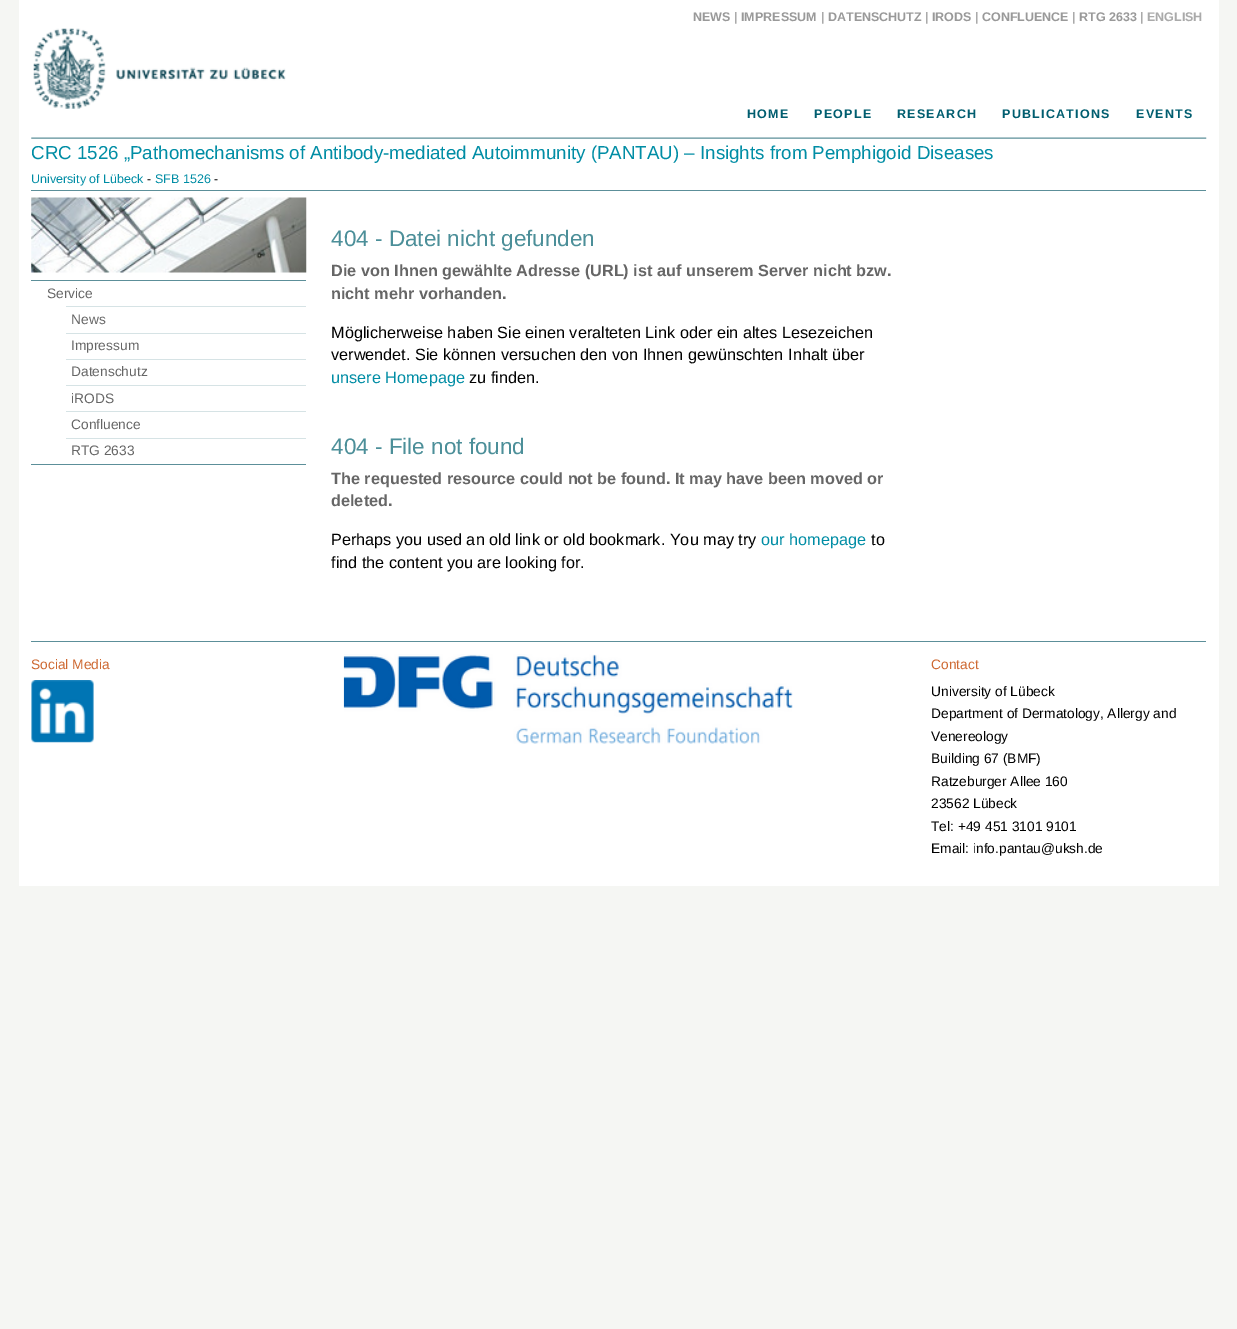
%!PS-Adobe-3.0
%%BoundingBox: 0 0 1237 1329
%%LanguageLevel: 3
%%Pages: 1
%%EndComments
%%BeginProlog
/setink { 3 { 255 div 3 1 roll } repeat setrgbcolor } def
/usefont { [ exch dup neg 0 0 3 -1 roll 0 0 ] selectfont } def
/drawtext { setink usefont moveto show } def
/fillbox { setink rectfill } def
/drawimage { 5 dict begin { /h /w /y /x /name } { exch def } forall
  gsave x y translate w h scale
  w h 8 [w 0 0 h 0 0] name (r) file false 3 colorimage grestore end } def
%%EndProlog
%%BeginSetup
<< /PageSize [1237 1329] >> setpagedevice
%%EndSetup
%%Page: 1 1
0 1329 translate 1 -1 scale
4 setmiterlimit
0 0 1237 1329 245 246 243 fillbox
19 0 1200 886 255 255 255 fillbox
(NEWS) 693 21 /LiberationSans-Bold 12.5 153 153 153 drawtext
(|) 734 21 /LiberationSans-Bold 12.5 170 170 170 drawtext
(IMPRESSUM) 741 21 /LiberationSans-Bold 12.5 153 153 153 drawtext
(|) 821 21 /LiberationSans-Bold 12.5 170 170 170 drawtext
(DATENSCHUTZ) 828 21 /LiberationSans-Bold 12.5 153 153 153 drawtext
(|) 925 21 /LiberationSans-Bold 12.5 170 170 170 drawtext
(IRODS) 932 21 /LiberationSans-Bold 12.5 153 153 153 drawtext
(|) 975 21 /LiberationSans-Bold 12.5 170 170 170 drawtext
(CONFLUENCE) 982 21 /LiberationSans-Bold 12.5 153 153 153 drawtext
(|) 1072 21 /LiberationSans-Bold 12.5 170 170 170 drawtext
(RTG 2633) 1079 21 /LiberationSans-Bold 12.5 153 153 153 drawtext
(| ENGLISH) 1140 21 /LiberationSans-Bold 12.5 170 170 170 drawtext
(assets/img1.rgb) 33 28 253 81 drawimage
(assets/img2.rgb) 31 137 1176 2 drawimage
0 93 111 setink
747 118 moveto 1.25 0 (HOME) ashow
814 118 moveto 1.25 0 (PEOPLE) ashow
897 118 moveto 1.25 0 (RESEARCH) ashow
1002 118 moveto 1.25 0 (PUBLICATIONS) ashow
1136 118 moveto 1.25 0 (EVENTS) ashow
(CRC 1526 „Pathomechanisms of Antibody-mediated Autoimmunity \(PANTAU\) – Insights from Pemphigoid Diseases) 31 159 /LiberationSans-Regular 18.75 0 141 165 drawtext
31 190 1175 1 92 143 153 fillbox
(University of Lübeck) 31 183 /LiberationSans-Regular 12.5 0 141 165 drawtext
(-) 147 183 /LiberationSans-Regular 12.5 0 0 0 drawtext
(SFB 1526) 155 183 /LiberationSans-Regular 12.5 0 141 165 drawtext
(-) 214 183 /LiberationSans-Regular 12.5 0 0 0 drawtext
(assets/img3.rgb) 31 197 276 76 drawimage
31 464 275 1 92 143 153 fillbox
31 280 275 1 92 143 153 fillbox
(Service) 47 298 /LiberationSans-Regular 13.75 102 102 102 drawtext
66 306 240 1 214 227 229 fillbox
(News) 71 324 /LiberationSans-Regular 13.75 102 102 102 drawtext
66 333 240 1 214 227 229 fillbox
(Impressum) 71 350 /LiberationSans-Regular 13.75 102 102 102 drawtext
66 359 240 1 214 227 229 fillbox
(Datenschutz) 71 376 /LiberationSans-Regular 13.75 102 102 102 drawtext
66 385 240 1 214 227 229 fillbox
(iRODS) 71 403 /LiberationSans-Regular 13.75 102 102 102 drawtext
66 411 240 1 214 227 229 fillbox
(Confluence) 71 429 /LiberationSans-Regular 13.75 102 102 102 drawtext
66 438 240 1 214 227 229 fillbox
(RTG 2633) 71 455 /LiberationSans-Regular 13.75 102 102 102 drawtext
(404 - Datei nicht gefunden) 331 246 /LiberationSans-Regular 22.5 76 143 153 drawtext
(Die von Ihnen gewählte Adresse \(URL\) ist auf unserem Server nicht bzw.) 331 276 /LiberationSans-Bold 16.25 102 102 102 drawtext
(nicht mehr vorhanden.) 331 299 /LiberationSans-Bold 16.25 102 102 102 drawtext
(Möglicherweise haben Sie einen veralteten Link oder ein altes Lesezeichen) 331 338 /LiberationSans-Regular 16.25 0 0 0 drawtext
(verwendet. Sie können versuchen den von Ihnen gewünschten Inhalt über) 331 360 /LiberationSans-Regular 16.25 0 0 0 drawtext
(unsere Homepage) 331 383 /LiberationSans-Regular 16.25 0 141 165 drawtext
(zu finden.) 469 383 /LiberationSans-Regular 16.25 0 0 0 drawtext
(404 - File not found) 331 454 /LiberationSans-Regular 22.5 76 143 153 drawtext
(The requested resource could not be found. It may have been moved or) 331 484 /LiberationSans-Bold 16.25 102 102 102 drawtext
(deleted.) 331 506 /LiberationSans-Bold 16.25 102 102 102 drawtext
(Perhaps you used an old link or old bookmark. You may try) 331 545 /LiberationSans-Regular 16.25 0 0 0 drawtext
(our homepage) 761 545 /LiberationSans-Regular 16.25 0 141 165 drawtext
(to) 871 545 /LiberationSans-Regular 16.25 0 0 0 drawtext
(find the content you are looking for.) 331 568 /LiberationSans-Regular 16.25 0 0 0 drawtext
31 641 1175 1 92 143 153 fillbox
(Social Media) 31 669 /LiberationSans-Regular 13.75 206 105 50 drawtext
(assets/img4.rgb) 31 680 63 63 drawimage
(assets/img5.rgb) 343 654 450 90 drawimage
(Contact) 931 669 /LiberationSans-Regular 13.75 206 105 50 drawtext
(University of Lübeck) 931 696 /LiberationSans-Regular 13.75 0 0 0 drawtext
(Department of Dermatology, Allergy and) 931 718 /LiberationSans-Regular 13.75 0 0 0 drawtext
(Venereology) 931 741 /LiberationSans-Regular 13.75 0 0 0 drawtext
(Building 67 \(BMF\)) 931 763 /LiberationSans-Regular 13.75 0 0 0 drawtext
(Ratzeburger Allee 160) 931 786 /LiberationSans-Regular 13.75 0 0 0 drawtext
(23562 Lübeck) 931 808 /LiberationSans-Regular 13.75 0 0 0 drawtext
(Tel: +49 451 3101 9101) 931 831 /LiberationSans-Regular 13.75 0 0 0 drawtext
(Email:) 931 853 /LiberationSans-Regular 13.75 0 0 0 drawtext
(i) 973 853 /LiberationSans-Regular 13.75 85 85 85 drawtext
(nfo.pantau@uksh.de) 976 853 /LiberationSans-Regular 13.75 0 0 0 drawtext
showpage
%%EOF
